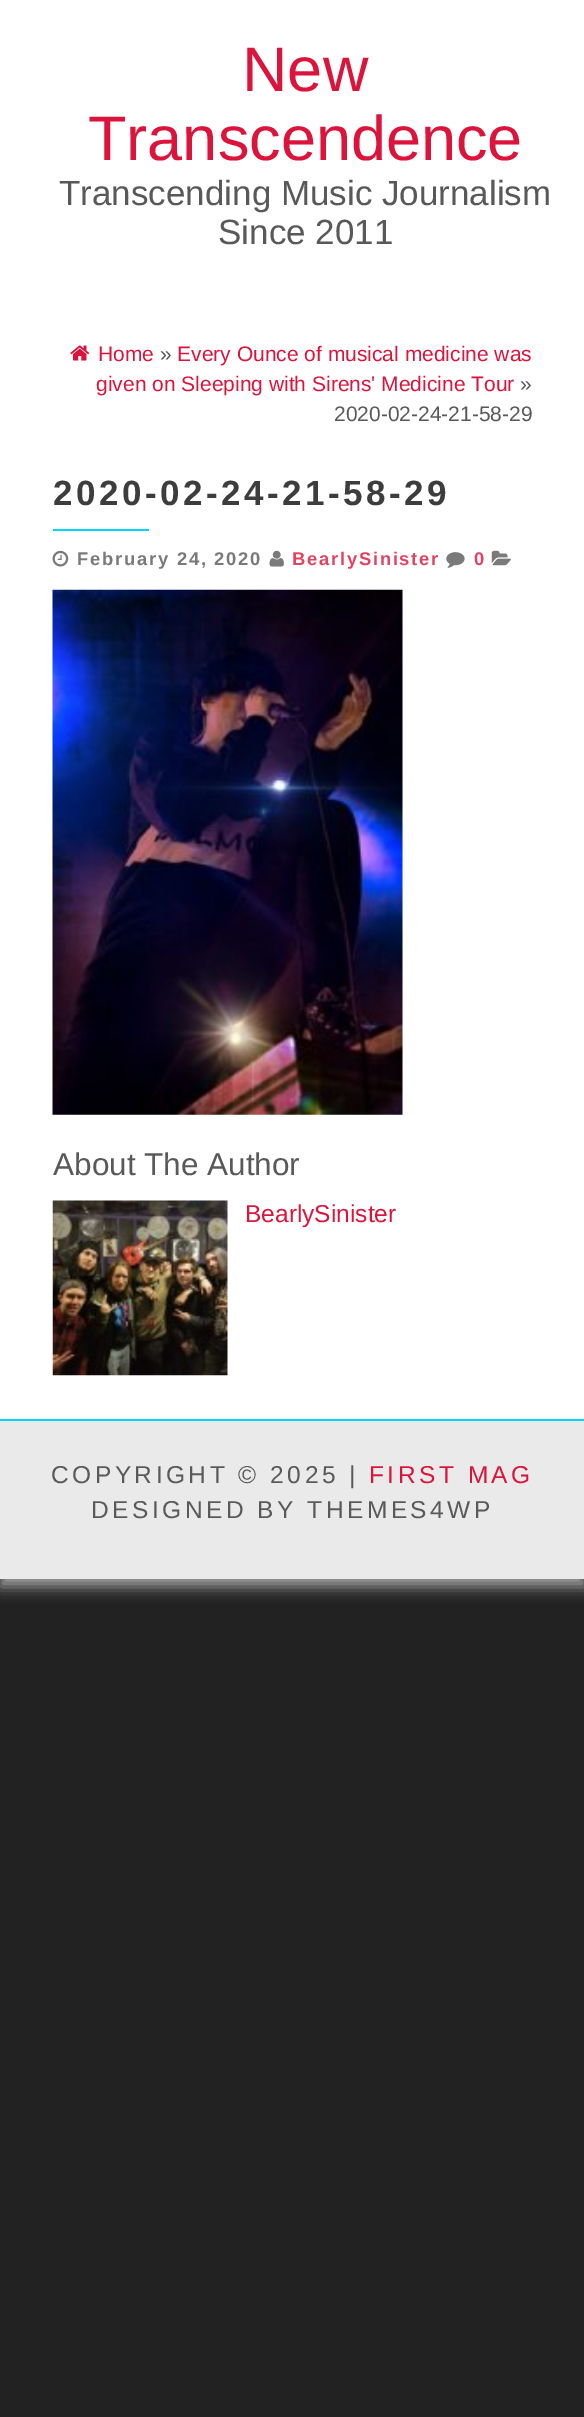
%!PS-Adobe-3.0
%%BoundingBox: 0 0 584 2417
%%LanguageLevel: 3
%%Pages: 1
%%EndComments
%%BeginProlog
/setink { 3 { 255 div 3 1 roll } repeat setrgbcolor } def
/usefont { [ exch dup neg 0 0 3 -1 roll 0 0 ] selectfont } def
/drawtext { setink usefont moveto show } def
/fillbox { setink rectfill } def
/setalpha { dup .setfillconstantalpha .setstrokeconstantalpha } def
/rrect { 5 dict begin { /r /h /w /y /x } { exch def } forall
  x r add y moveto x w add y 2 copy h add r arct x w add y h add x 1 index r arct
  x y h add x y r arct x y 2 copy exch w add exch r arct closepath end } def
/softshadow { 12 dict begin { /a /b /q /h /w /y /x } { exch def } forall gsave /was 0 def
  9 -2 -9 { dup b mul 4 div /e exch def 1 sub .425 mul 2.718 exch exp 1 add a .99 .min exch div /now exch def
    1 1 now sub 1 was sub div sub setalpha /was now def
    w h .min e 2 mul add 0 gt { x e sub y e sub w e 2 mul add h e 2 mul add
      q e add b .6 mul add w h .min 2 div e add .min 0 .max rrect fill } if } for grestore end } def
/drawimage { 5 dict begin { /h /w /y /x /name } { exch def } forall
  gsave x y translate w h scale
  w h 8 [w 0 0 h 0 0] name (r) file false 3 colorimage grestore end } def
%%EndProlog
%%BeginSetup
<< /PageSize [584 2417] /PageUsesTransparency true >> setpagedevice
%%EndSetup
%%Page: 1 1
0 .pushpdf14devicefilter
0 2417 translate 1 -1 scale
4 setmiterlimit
0 0 584 2417 34 34 34 fillbox
161 161 161 setink
0 9 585 1578 0 7 1 softshadow
0 0 584 1419 255 255 255 fillbox
(New) 242 91 /LiberationSans-Regular 63 220 20 60 drawtext
(Transcendence) 88 160 /LiberationSans-Regular 63 220 20 60 drawtext
(Transcending Music Journalism) 59 205 /LiberationSans-Regular 35 89 89 89 drawtext
(Since 2011) 218 244 /LiberationSans-Regular 35 89 89 89 drawtext
(assets/img1.rgb) 70 345 20 16 drawimage
(Home) 98 361 /LiberationSans-Regular 21 220 20 60 drawtext
(») 160 361 /LiberationSans-Regular 21 89 89 89 drawtext
(Every Ounce of musical medicine was) 177 361 /LiberationSans-Regular 21 220 20 60 drawtext
(given on Sleeping with Sirens' Medicine Tour) 96 391 /LiberationSans-Regular 21 220 20 60 drawtext
(») 520 391 /LiberationSans-Regular 21 89 89 89 drawtext
(2020-02-24-21-58-29) 334 421 /LiberationSans-Regular 21 89 89 89 drawtext
/LiberationSans-Bold 35 usefont
61 61 61 setink
53 505 moveto 3.5 0 (2020-02-24-21-58-29) ashow
53 529 96 2 0 214 247 fillbox
(assets/img2.rgb) 52 550 17 17 drawimage
/LiberationSans-Bold 18.4 usefont
122 122 122 setink
77 565 moveto 1.75 0 (February 24, 2020) ashow
(assets/img3.rgb) 269 550 15 17 drawimage
227 67 99 setink
292 565 moveto 1.75 0 (BearlySinister) ashow
(assets/img4.rgb) 446 552 19 16 drawimage
474 565 moveto 1.75 0 (0) ashow
(assets/img5.rgb) 491 550 20 16 drawimage
(assets/img6.rgb) 52 589 351 526 drawimage
(About The Author) 53 1175 /LiberationSans-Regular 31.5 89 89 89 drawtext
(assets/img7.rgb) 52 1200 176 176 drawimage
(BearlySinister) 245 1222 /LiberationSans-Regular 24.5 220 20 60 drawtext
0 1421 584 158 234 234 234 fillbox
0 1419 584 2 0 214 247 fillbox
89 89 89 setink
51 1483 moveto 3.5 0 (COPYRIGHT © 2025 |) ashow
220 20 60 setink
369 1483 moveto 3.5 0 (FIRST MAG) ashow
89 89 89 setink
91 1518 moveto 3.5 0 (DESIGNED BY THEMES4WP) ashow
.poppdf14devicefilter showpage
%%EOF
